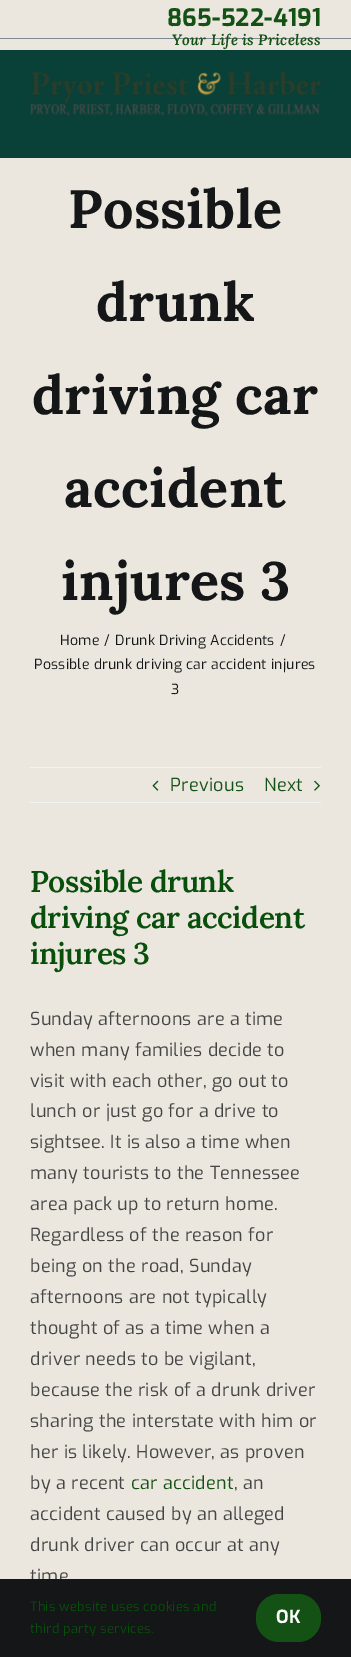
%!PS-Adobe-3.0
%%BoundingBox: 0 0 351 1657
%%LanguageLevel: 3
%%Pages: 1
%%EndComments
%%BeginProlog
/setink { 3 { 255 div 3 1 roll } repeat setrgbcolor } def
/usefont { [ exch dup neg 0 0 3 -1 roll 0 0 ] selectfont } def
/fillbox { setink rectfill } def
/rrect { 5 dict begin { /r /h /w /y /x } { exch def } forall
  x r add y moveto x w add y 2 copy h add r arct x w add y h add x 1 index r arct
  x y h add x y r arct x y 2 copy exch w add exch r arct closepath end } def
/drawimage { 5 dict begin { /h /w /y /x /name } { exch def } forall
  gsave x y translate w h scale
  w h 8 [w 0 0 h 0 0] name (r) file false 3 colorimage grestore end } def
%%EndProlog
%%BeginSetup
<< /PageSize [351 1657] >> setpagedevice
%%EndSetup
%%Page: 1 1
0 1657 translate 1 -1 scale
4 setmiterlimit
0 0 351 1657 235 231 223 fillbox
0 50 351 108 9 64 55 fillbox
0 38 351 1 126 139 149 fillbox
/Exo-Bold 24 usefont
19 81 21 setink
167 26 moveto 0.25 0 (865-522-4191) ashow
/Lora-SemiBoldItalic 15 usefont
172 45 moveto 0.25 0 (Your Life is Priceless) ashow
(assets/img1.rgb) 30 71 291 45 drawimage
/Lora-Bold 54 usefont
20 22 23 setink
68 228 moveto 0.25 0 (Possible) ashow
96 321 moveto 0.25 0 (drunk) ashow
32 414 moveto 0.25 0 (driving car) ashow
64 507 moveto 0.25 0 (accident) ashow
61 600 moveto 0.25 0 (injures 3) ashow
/Exo-Regular 14 usefont
60 645 moveto 0.25 0 (Home) ashow
104 645 moveto 0.25 0 (/) ashow
115 645 moveto 0.25 0 (Drunk Driving Accidents) ashow
280 645 moveto 0.25 0 (/) ashow
34 669 moveto 0.25 0 (Possible drunk driving car accident injures) ashow
171 694 moveto 0.25 0 (3) ashow
30 767 291 1 242 243 245 fillbox
30 802 291 1 242 243 245 fillbox
(assets/img2.rgb) 152 780 7 11 drawimage
/Exo-Regular 18 usefont
19 81 21 setink
170 791 moveto 0.25 0 (Previous) ashow
264 791 moveto 0.25 0 (Next) ashow
(assets/img3.rgb) 314 780 6 11 drawimage
/Lora-SemiBold 30 usefont
7 79 10 setink
30 892 moveto -0.5 0 (Possible drunk) ashow
30 928 moveto -0.5 0 (driving car accident) ashow
30 964 moveto -0.5 0 (injures 3) ashow
/Exo-Regular 18 usefont
68 68 68 setink
30 1025 moveto 0.25 0 (Sunday afternoons are a time) ashow
30 1056 moveto 0.25 0 (when many families decide to) ashow
30 1087 moveto 0.25 0 (visit with each other, go out to) ashow
30 1117 moveto 0.25 0 (lunch or just go for a drive to) ashow
30 1148 moveto 0.25 0 (sightsee. It is also a time when) ashow
30 1179 moveto 0.25 0 (many tourists to the Tennessee) ashow
30 1210 moveto 0.25 0 (area pack up to return home.) ashow
30 1241 moveto 0.25 0 (Regardless of the reason for) ashow
30 1272 moveto 0.25 0 (being on the road, Sunday) ashow
30 1303 moveto 0.25 0 (afternoons are not typically) ashow
30 1334 moveto 0.25 0 (thought of as a time when a) ashow
30 1365 moveto 0.25 0 (driver needs to be vigilant,) ashow
30 1396 moveto 0.25 0 (because the risk of a drunk driver) ashow
30 1427 moveto 0.25 0 (sharing the interstate with him or) ashow
30 1458 moveto 0.25 0 (her is likely. However, as proven) ashow
30 1489 moveto 0.25 0 (by a recent) ashow
19 81 21 setink
131 1489 moveto 0.25 0 (car accident) ashow
68 68 68 setink
234 1489 moveto 0.25 0 (, an) ashow
30 1520 moveto 0.25 0 (accident caused by an alleged) ashow
30 1551 moveto 0.25 0 (drunk driver can occur at any) ashow
30 1582 moveto 0.25 0 (time) ashow
0 1579 351 78 20 22 23 fillbox
/Exo-Regular 13 usefont
7 79 10 setink
30 1611 moveto 0.25 0 (This website uses cookies and) ashow
30 1633 moveto 0.25 0 (third party services.) ashow
19 81 21 setink
256 1594 65 48 23 rrect fill
/Exo-Bold 18 usefont
255 255 255 setink
276 1623 moveto 0.25 0 (OK) ashow
showpage
%%EOF
